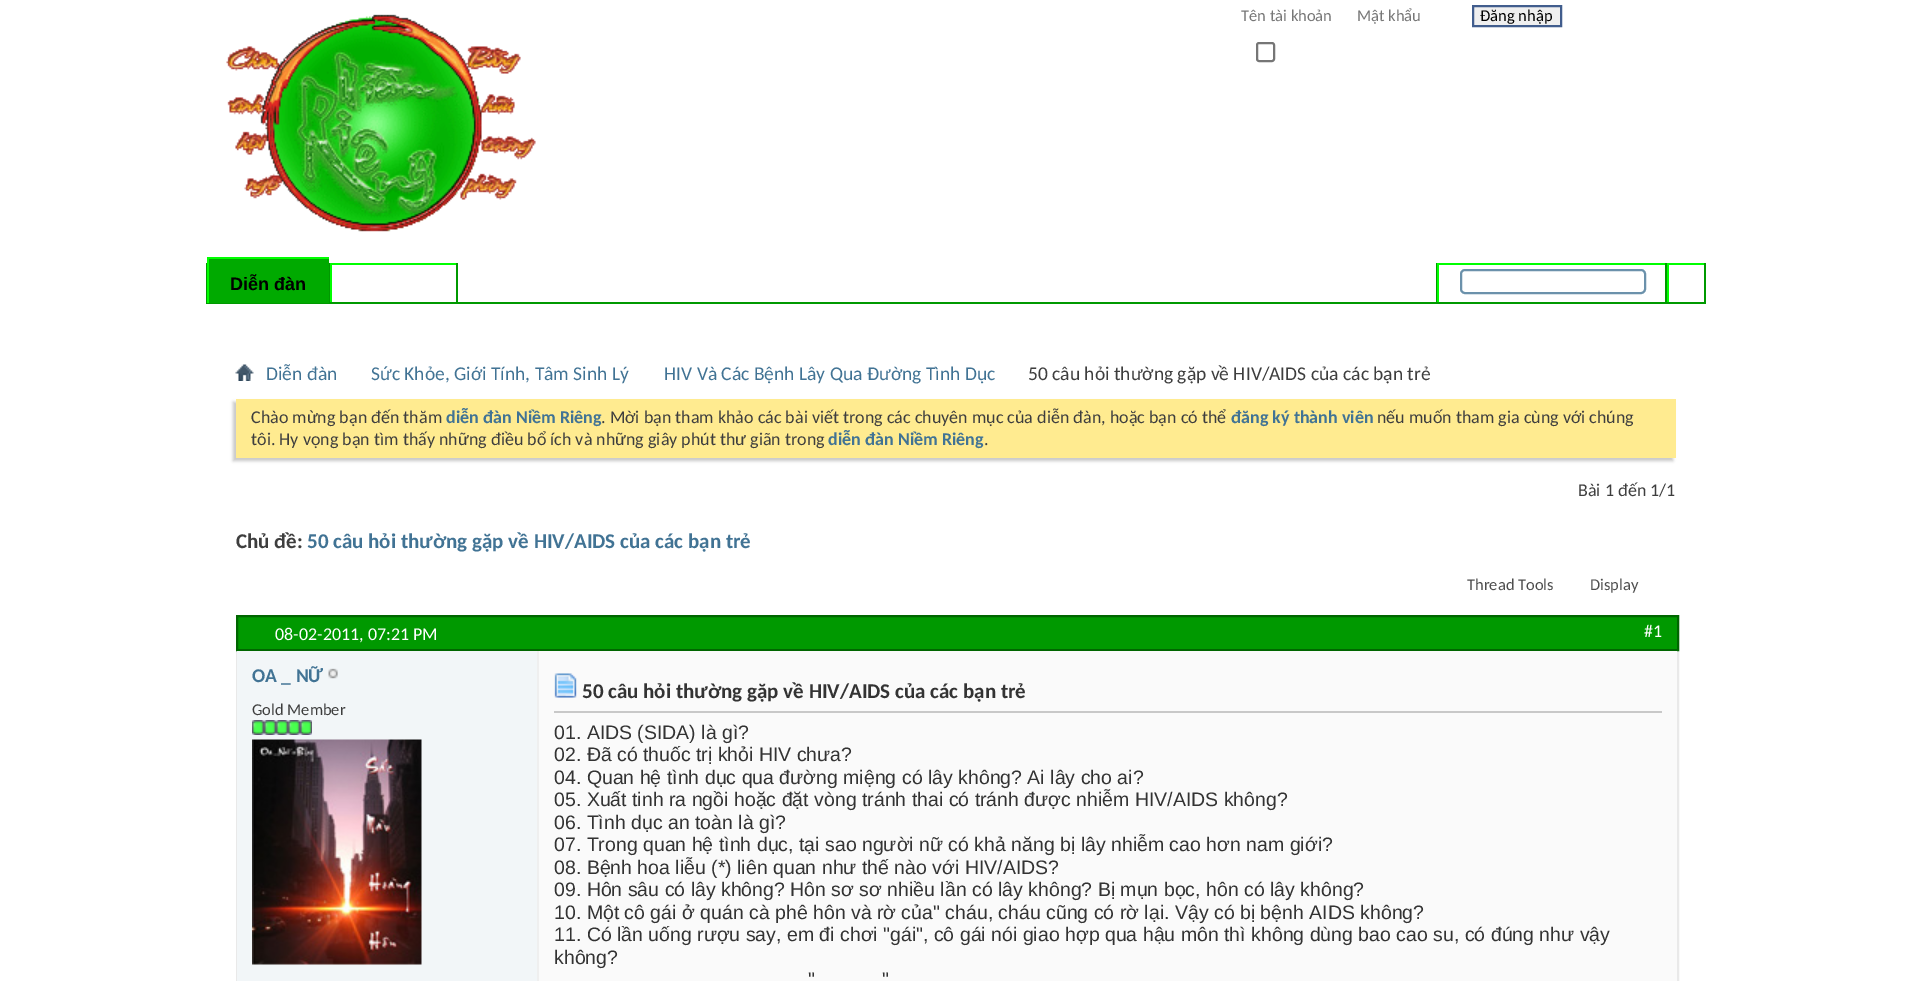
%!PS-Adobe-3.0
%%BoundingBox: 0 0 1910 981
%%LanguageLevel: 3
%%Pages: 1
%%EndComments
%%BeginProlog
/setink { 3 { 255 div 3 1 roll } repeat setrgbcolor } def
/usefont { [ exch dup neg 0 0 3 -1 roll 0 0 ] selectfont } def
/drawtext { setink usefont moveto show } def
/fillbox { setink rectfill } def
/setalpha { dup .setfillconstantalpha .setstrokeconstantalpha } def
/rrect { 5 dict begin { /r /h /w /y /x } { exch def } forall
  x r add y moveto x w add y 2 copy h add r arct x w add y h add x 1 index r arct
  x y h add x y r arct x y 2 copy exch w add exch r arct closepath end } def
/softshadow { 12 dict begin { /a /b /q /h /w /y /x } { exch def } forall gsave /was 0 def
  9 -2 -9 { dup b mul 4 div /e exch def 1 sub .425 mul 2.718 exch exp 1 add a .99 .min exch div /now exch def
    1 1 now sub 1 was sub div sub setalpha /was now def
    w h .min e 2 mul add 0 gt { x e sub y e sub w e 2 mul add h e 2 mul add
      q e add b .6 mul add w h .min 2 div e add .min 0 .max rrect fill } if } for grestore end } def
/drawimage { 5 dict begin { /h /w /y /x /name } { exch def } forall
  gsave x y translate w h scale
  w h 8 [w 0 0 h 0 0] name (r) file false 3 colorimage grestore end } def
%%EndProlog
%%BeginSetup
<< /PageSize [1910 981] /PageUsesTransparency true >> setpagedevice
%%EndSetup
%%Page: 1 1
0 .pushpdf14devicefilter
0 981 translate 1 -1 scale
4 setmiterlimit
0 0 1910 981 255 255 255 fillbox
(assets/img1.rgb) 226 14 310 218 drawimage
(Tên tài khoản) 1241 21 /Carlito-Regular 16.5 119 119 119 drawtext
(Mật khẩu) 1357 21 /Carlito-Regular 16.5 119 119 119 drawtext
239 239 239 setink
1473 6 moveto 1561 6 lineto 1561 26 lineto 1473 26 lineto closepath gsave fill grestore
65 93 141 setink
2 setlinewidth
stroke
(Đăng nhập) 1480 21 /Carlito-Regular 16.5 0 0 0 drawtext
118 118 118 setink
1257 43 17 18 2 rrect stroke
329 263 1 39 0 153 0 fillbox
206 263 1 39 0 153 0 fillbox
456 263 2 40 0 153 0 fillbox
330 263 126 2 0 255 0 fillbox
330 263 2 40 0 255 0 fillbox
206 302 1500 2 0 153 0 fillbox
209 259 120 44 0 170 0 fillbox
207 257 122 2 0 255 0 fillbox
207 257 2 46 0 255 0 fillbox
(Diễn đàn) 230 290 /LiberationSans-Bold 18 0 0 0 drawtext
1436 263 1 39 0 153 0 fillbox
1437 263 228 2 0 255 0 fillbox
1437 263 2 39 0 255 0 fillbox
107 145 171 setink
1461 270 184 23 4 rrect stroke
1704 263 2 39 0 153 0 fillbox
1665 263 2 39 0 153 0 fillbox
1667 263 37 2 0 255 0 fillbox
1667 263 2 39 0 255 0 fillbox
(assets/img2.rgb) 235 364 19 17 drawimage
(Diễn đàn) 266 380 /Carlito-Regular 19.5 65 115 148 drawtext
(Sức Khỏe, Giới Tính, Tâm Sinh Lý) 371 380 /Carlito-Regular 19.5 65 115 148 drawtext
(HIV Và Các Bệnh Lây Qua Đường Tình Dục) 664 380 /Carlito-Regular 19.5 65 115 148 drawtext
(50 câu hỏi thường gặp về HIV/AIDS của các bạn trẻ) 1028 380 /Carlito-Regular 19.5 62 62 62 drawtext
200 200 200 setink
233 402 1440 59 0 1.5 1 softshadow
236 399 1440 59 255 235 144 fillbox
(Chào mừng bạn đến thăm) 251 423 /Carlito-Regular 18 62 62 62 drawtext
(diễn đàn Niềm Riêng) 446 423 /Carlito-Bold 18 65 115 148 drawtext
(. Mời bạn tham khảo các bài viết trong các chuyên mục của diễn đàn, hoặc bạn có thể) 601 423 /Carlito-Regular 18 62 62 62 drawtext
(đăng ký thành viên) 1231 423 /Carlito-Bold 18 65 115 148 drawtext
(nếu muốn tham gia cùng với chúng) 1377 423 /Carlito-Regular 18 62 62 62 drawtext
(tôi. Hy vọng bạn tìm thấy những điều bổ ích và những giây phút thư giãn trong) 251 445 /Carlito-Regular 18 62 62 62 drawtext
(diễn đàn Niềm Riêng) 828 445 /Carlito-Bold 18 65 115 148 drawtext
(.) 984 445 /Carlito-Regular 18 62 62 62 drawtext
(Bài 1 đến 1/1) 1578 496 /Carlito-Regular 18 62 62 62 drawtext
(Chủ đề:) 236 548 /Carlito-Bold 21 62 62 62 drawtext
(50 câu hỏi thường gặp về HIV/AIDS của các bạn trẻ) 307 548 /Carlito-Bold 21 65 115 148 drawtext
(Thread Tools) 1467 590 /Carlito-Regular 16.5 78 78 78 drawtext
(Display) 1590 590 /Carlito-Regular 16.5 78 78 78 drawtext
233 233 233 setink
237 616 1441 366 rectstroke
0 153 0 setink
237 616 moveto 1678 616 lineto 1678 650 lineto 237 650 lineto closepath gsave fill grestore
0 102 0 setink
stroke
(08-02-2011, 07:21 PM) 275 640 /Carlito-Regular 18 255 255 255 drawtext
(#1) 1644 637 /Carlito-Regular 18 255 255 255 drawtext
237 651 300 330 242 246 248 fillbox
(OA _ NỮ) 252 682 /Carlito-Bold 19.5 65 115 148 drawtext
(assets/img3.rgb) 328 668 10 11 drawimage
(Gold Member) 252 715 /Carlito-Regular 16.5 62 62 62 drawtext
(assets/img4.rgb) 252 720 12 15 drawimage
(assets/img5.rgb) 264 720 12 15 drawimage
(assets/img5.rgb) 276 720 12 15 drawimage
(assets/img5.rgb) 288 720 12 15 drawimage
(assets/img5.rgb) 300 720 12 15 drawimage
(assets/img6.rgb) 252 739 170 226 drawimage
539 651 1138 330 250 250 250 fillbox
537 651 2 330 239 239 239 fillbox
554 711 1108 2 200 200 200 fillbox
(assets/img7.rgb) 554 673 23 25 drawimage
(50 câu hỏi thường gặp về HIV/AIDS của các bạn trẻ) 582 698 /Carlito-Bold 21 51 51 51 drawtext
(01. AIDS \(SIDA\) là gì?) 554 739 /LiberationSans-Regular 19.5 51 51 51 drawtext
(02. Đã có thuốc trị khỏi HIV chưa?) 554 761 /LiberationSans-Regular 19.5 51 51 51 drawtext
(04. Quan hệ tình dục qua đường miệng có lây không? Ai lây cho ai?) 554 784 /LiberationSans-Regular 19.5 51 51 51 drawtext
(05. Xuất tinh ra ngồi hoặc đặt vòng tránh thai có tránh được nhiễm HIV/AIDS không?) 554 806 /LiberationSans-Regular 19.5 51 51 51 drawtext
(06. Tình dục an toàn là gì?) 554 829 /LiberationSans-Regular 19.5 51 51 51 drawtext
(07. Trong quan hệ tình dục, tại sao người nữ có khả năng bị lây nhiễm cao hơn nam giới?) 554 851 /LiberationSans-Regular 19.5 51 51 51 drawtext
(08. Bệnh hoa liễu \(*\) liên quan như thế nào với HIV/AIDS?) 554 874 /LiberationSans-Regular 19.5 51 51 51 drawtext
(09. Hôn sâu có lây không? Hôn sơ sơ nhiều lần có lây không? Bị mụn bọc, hôn có lây không?) 554 896 /LiberationSans-Regular 19.5 51 51 51 drawtext
(10. Một cô gái ở quán cà phê hôn và rờ của" cháu, cháu cũng có rờ lại. Vậy có bị bệnh AIDS không?) 554 919 /LiberationSans-Regular 19.5 51 51 51 drawtext
(11. Có lần uống rượu say, em đi chơi "gái", cô gái nói giao hợp qua hậu môn thì không dùng bao cao su, có đúng như vậy) 554 941 /LiberationSans-Regular 19.5 51 51 51 drawtext
(không?) 554 964 /LiberationSans-Regular 19.5 51 51 51 drawtext
(") 808 986 /LiberationSans-Regular 19.5 51 51 51 drawtext
(") 882 986 /LiberationSans-Regular 19.5 51 51 51 drawtext
.poppdf14devicefilter showpage
%%EOF
